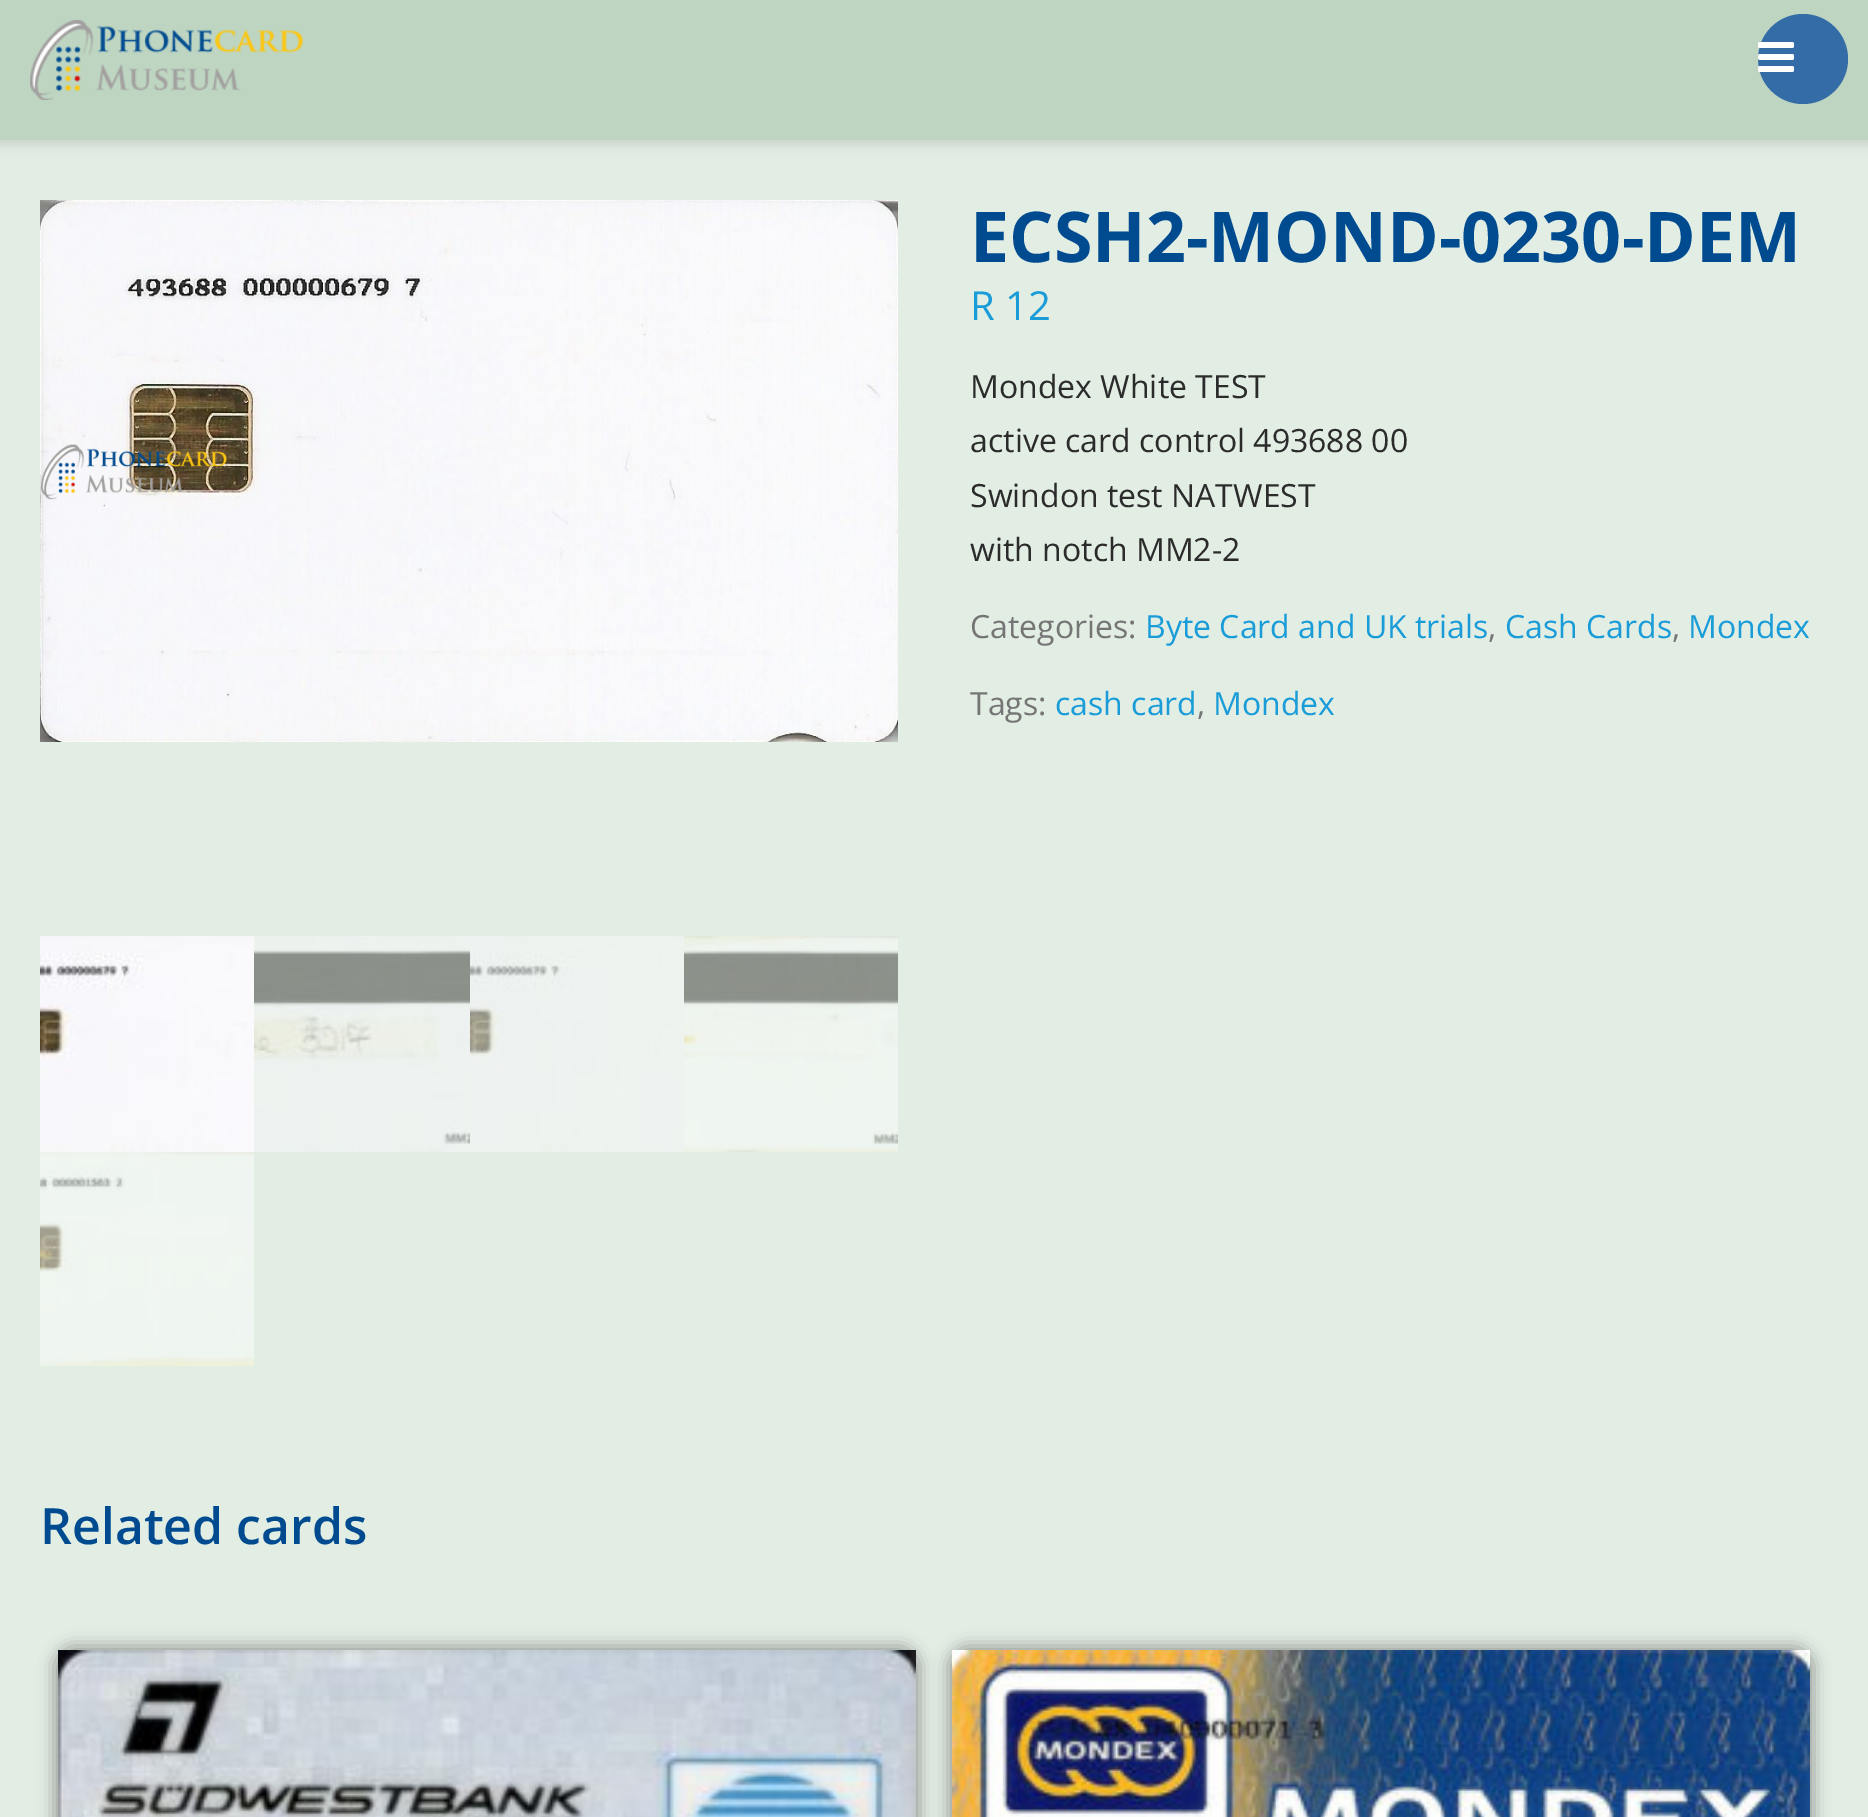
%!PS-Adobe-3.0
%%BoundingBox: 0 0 1868 1817
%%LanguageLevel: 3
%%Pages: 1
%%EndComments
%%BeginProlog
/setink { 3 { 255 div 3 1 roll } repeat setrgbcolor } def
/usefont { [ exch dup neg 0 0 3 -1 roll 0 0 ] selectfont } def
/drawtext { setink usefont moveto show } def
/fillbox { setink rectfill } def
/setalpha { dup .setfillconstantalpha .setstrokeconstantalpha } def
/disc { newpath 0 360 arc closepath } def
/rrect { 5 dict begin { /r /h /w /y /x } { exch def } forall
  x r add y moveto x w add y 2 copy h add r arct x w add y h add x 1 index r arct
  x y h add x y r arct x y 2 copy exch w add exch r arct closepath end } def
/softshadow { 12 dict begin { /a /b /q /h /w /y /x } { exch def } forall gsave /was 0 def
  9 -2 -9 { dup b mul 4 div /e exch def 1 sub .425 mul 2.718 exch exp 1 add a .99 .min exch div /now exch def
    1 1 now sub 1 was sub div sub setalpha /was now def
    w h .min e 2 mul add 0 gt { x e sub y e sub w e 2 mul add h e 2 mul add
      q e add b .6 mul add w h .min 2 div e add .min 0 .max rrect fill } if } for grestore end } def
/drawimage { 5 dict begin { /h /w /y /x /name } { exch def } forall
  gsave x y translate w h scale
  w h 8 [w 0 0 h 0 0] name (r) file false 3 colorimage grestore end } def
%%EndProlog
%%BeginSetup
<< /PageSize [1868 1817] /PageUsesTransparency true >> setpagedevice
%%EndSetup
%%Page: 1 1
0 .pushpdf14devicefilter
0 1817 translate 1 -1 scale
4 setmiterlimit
0 0 1868 1817 226 237 228 fillbox
102 102 102 setink
-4 -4 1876 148 0 6 0.22 softshadow
0 0 1868 140 189 213 193 fillbox
(assets/img1.rgb) 30 20 273 80 drawimage
51 108 166 setink
1803 59 45 disc fill
(assets/img2.rgb) 1758 42 36 30 drawimage
(assets/img3.rgb) 40 200 858 542 drawimage
(assets/img4.rgb) 40 936 214 216 drawimage
(assets/img5.rgb) 254 936 216 216 drawimage
(assets/img6.rgb) 470 936 214 216 drawimage
(assets/img7.rgb) 684 936 214 216 drawimage
(assets/img8.rgb) 40 1152 214 214 drawimage
(ECSH2-MOND-0230-DEM) 970 262 /OpenSans-Bold 70 0 75 144 drawtext
(R 12) 970 320 /OpenSans-Regular 40 25 156 216 drawtext
(Mondex White TEST) 970 398 /OpenSans-Regular 32 43 43 43 drawtext
(active card control 493688 00) 970 452 /OpenSans-Regular 32 43 43 43 drawtext
(Swindon test NATWEST) 970 507 /OpenSans-Regular 32 43 43 43 drawtext
(with notch MM2-2) 970 561 /OpenSans-Regular 32 43 43 43 drawtext
(Categories:) 970 638 /OpenSans-Regular 32 117 117 117 drawtext
(Byte Card and UK trials) 1145 638 /OpenSans-Regular 32 25 156 216 drawtext
(,) 1488 638 /OpenSans-Regular 32 117 117 117 drawtext
(Cash Cards) 1505 638 /OpenSans-Regular 32 25 156 216 drawtext
(,) 1672 638 /OpenSans-Regular 32 117 117 117 drawtext
(Mondex) 1688 638 /OpenSans-Regular 32 25 156 216 drawtext
(Tags:) 970 715 /OpenSans-Regular 32 117 117 117 drawtext
(cash card) 1055 715 /OpenSans-Regular 32 25 156 216 drawtext
(,) 1197 715 /OpenSans-Regular 32 117 117 117 drawtext
(Mondex) 1213 715 /OpenSans-Regular 32 25 156 216 drawtext
(Related cards) 40 1544 /OpenSans-SemiBold 50 0 75 144 drawtext
117 117 117 setink
54 1646 866 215 20 8 0.66 softshadow
(assets/img9.rgb) 58 1650 858 167 drawimage
948 1646 866 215 20 8 0.66 softshadow
(assets/img10.rgb) 952 1650 858 167 drawimage
.poppdf14devicefilter showpage
%%EOF
